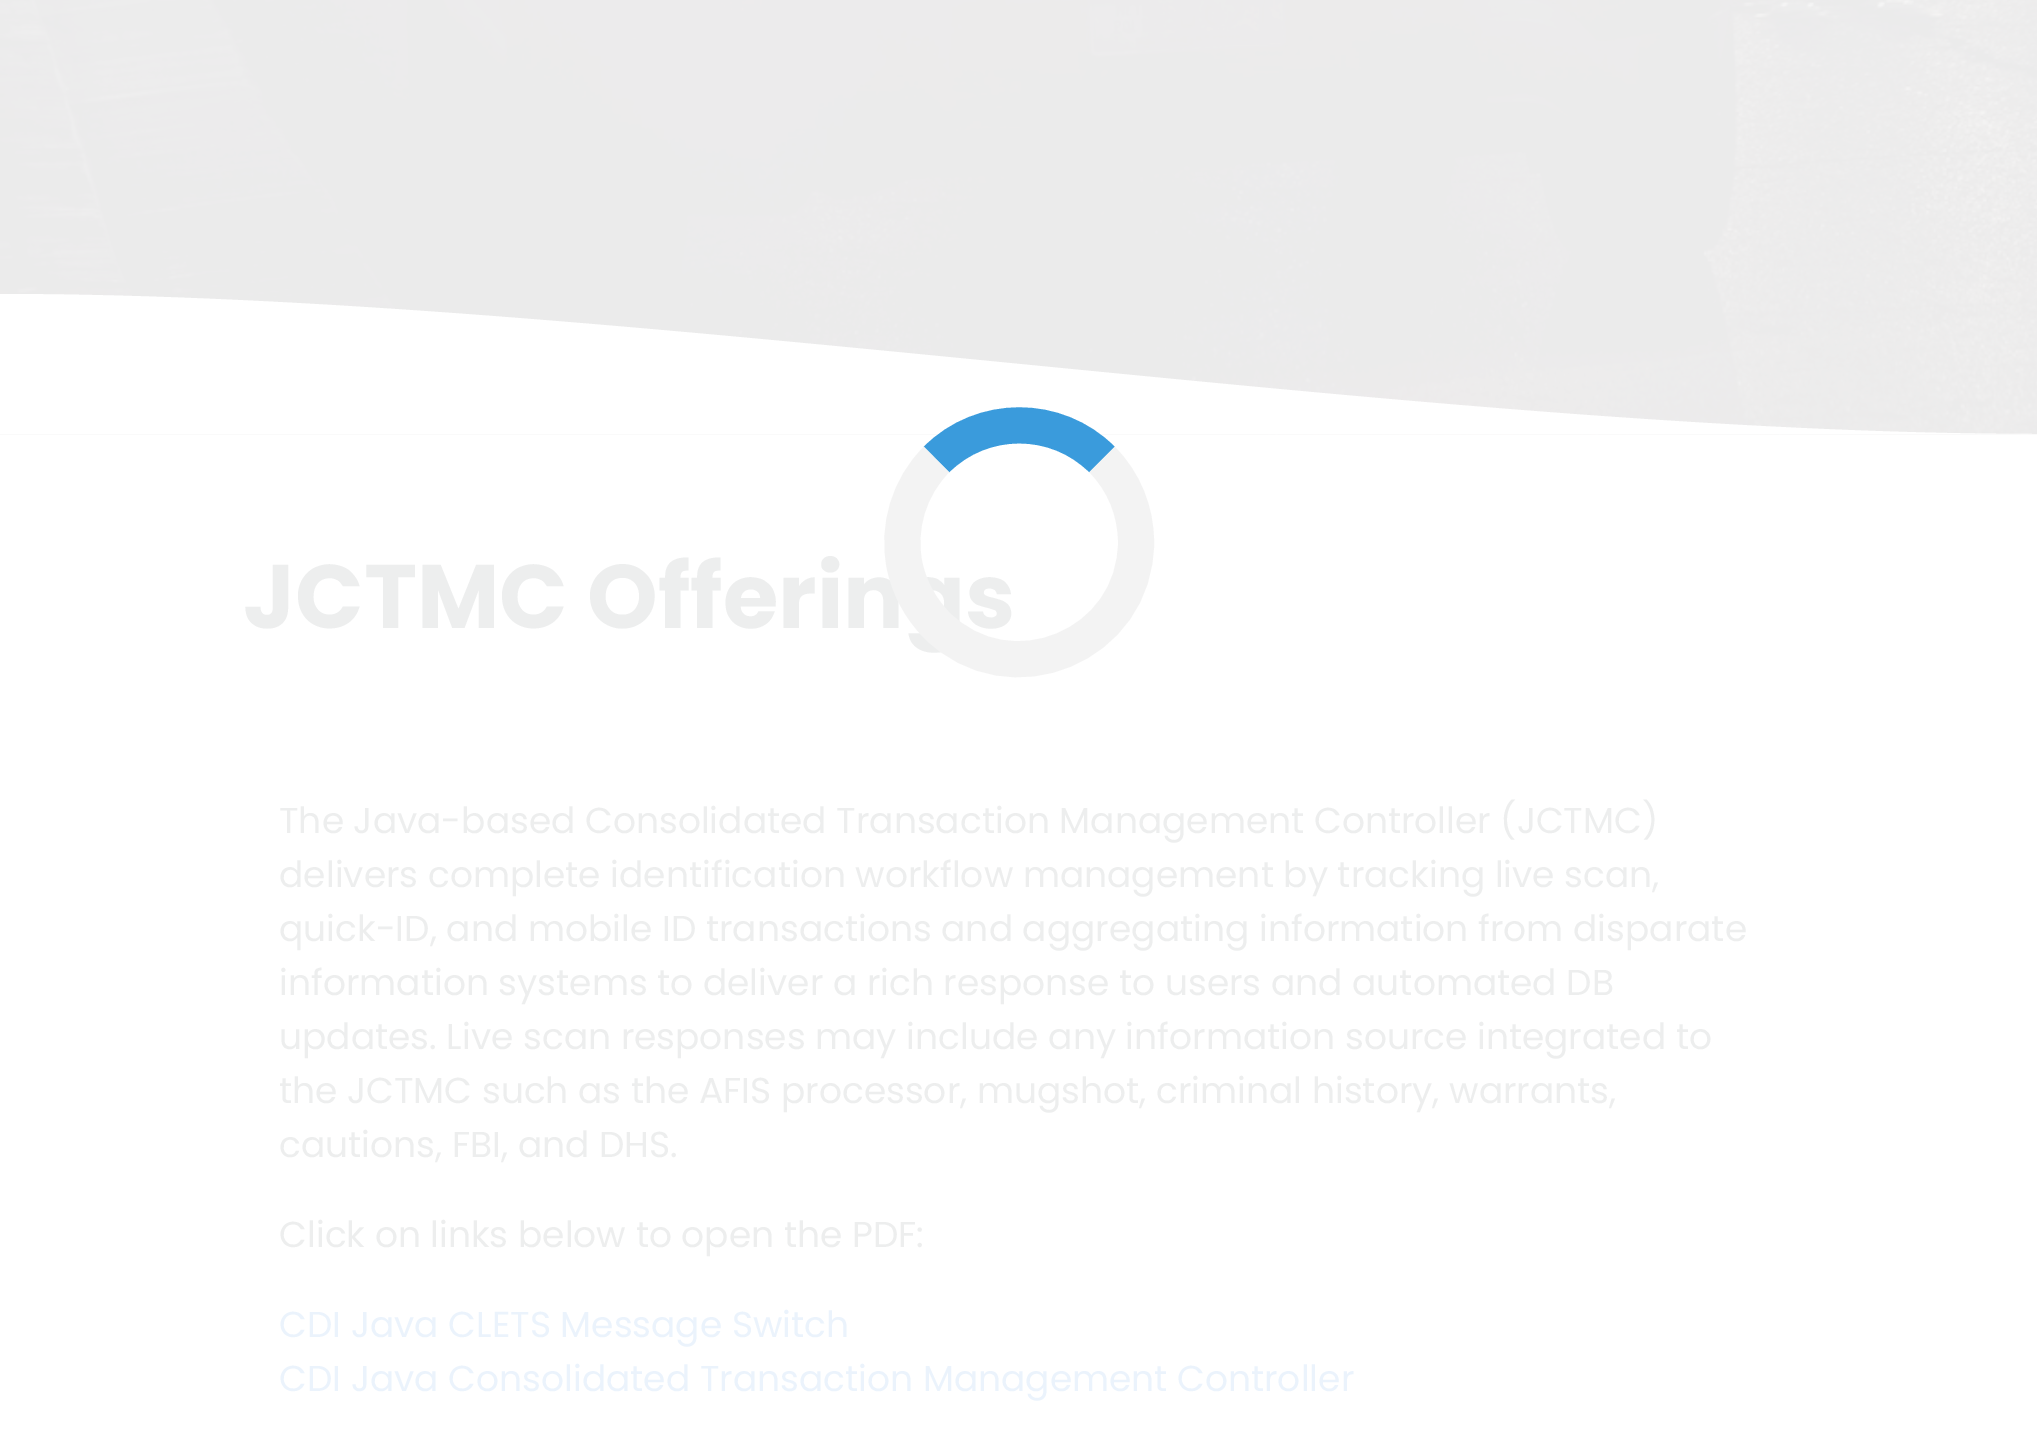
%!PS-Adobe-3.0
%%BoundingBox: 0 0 2037 1446
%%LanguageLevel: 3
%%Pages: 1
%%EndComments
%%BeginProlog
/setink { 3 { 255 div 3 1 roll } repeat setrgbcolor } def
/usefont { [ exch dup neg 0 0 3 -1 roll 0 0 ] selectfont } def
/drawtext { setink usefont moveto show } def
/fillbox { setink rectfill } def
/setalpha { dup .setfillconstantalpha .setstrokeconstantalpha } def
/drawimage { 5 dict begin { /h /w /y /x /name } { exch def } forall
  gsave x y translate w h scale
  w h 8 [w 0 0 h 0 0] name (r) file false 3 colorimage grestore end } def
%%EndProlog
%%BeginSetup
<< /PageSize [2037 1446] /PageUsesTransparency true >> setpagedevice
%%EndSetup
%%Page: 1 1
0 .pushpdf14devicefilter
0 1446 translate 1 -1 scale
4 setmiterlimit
0 0 2037 1446 255 255 255 fillbox
0 0 2037 434 235 235 235 fillbox
(assets/img1.rgb) 0 0 2037 435 drawimage
255 255 255 setink
-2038 434 moveto -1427 434 -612 294 0 294 curveto 612 294 1427 434 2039 434 curveto closepath fill
0.97 setalpha
52 152 219 setink
36 setlinewidth
936.5 459.5 moveto 982 414 1056.5 414 1102 459.5 curveto stroke
1 setalpha
(JCTMC Offerings) 243 628 /Poppins-Bold 90 237 238 238 drawtext
0.97 setalpha
243 243 243 setink
1102 459.5 moveto 1124 481.5 1136 511.5 1136 542 curveto 1136 646 1010 698.5 936.5 625 curveto 920.5 608.5 909 587.5 904.5 565 curveto 897 527 909 487 936.5 459.5 curveto stroke
1 setalpha
(The Java-based Consolidated Transaction Management Controller \(JCTMC\)) 279 833 /Poppins-Regular 36 237 238 238 drawtext
(delivers complete identification workflow management by tracking live scan,) 279 887 /Poppins-Regular 36 237 238 238 drawtext
(quick-ID, and mobile ID transactions and aggregating information from disparate) 279 941 /Poppins-Regular 36 237 238 238 drawtext
(information systems to deliver a rich response to users and automated DB) 279 995 /Poppins-Regular 36 237 238 238 drawtext
(updates. Live scan responses may include any information source integrated to) 279 1049 /Poppins-Regular 36 237 238 238 drawtext
(the JCTMC such as the AFIS processor, mugshot, criminal history, warrants,) 279 1103 /Poppins-Regular 36 237 238 238 drawtext
(cautions, FBI, and DHS.) 279 1157 /Poppins-Regular 36 237 238 238 drawtext
(Click on links below to open the PDF:) 279 1247 /Poppins-Regular 36 237 238 238 drawtext
(CDI Java CLETS Message Switch) 279 1337 /Poppins-Regular 36 235 243 252 drawtext
(CDI Java Consolidated Transaction Management Controller) 279 1391 /Poppins-Regular 36 235 243 252 drawtext
.poppdf14devicefilter showpage
%%EOF
